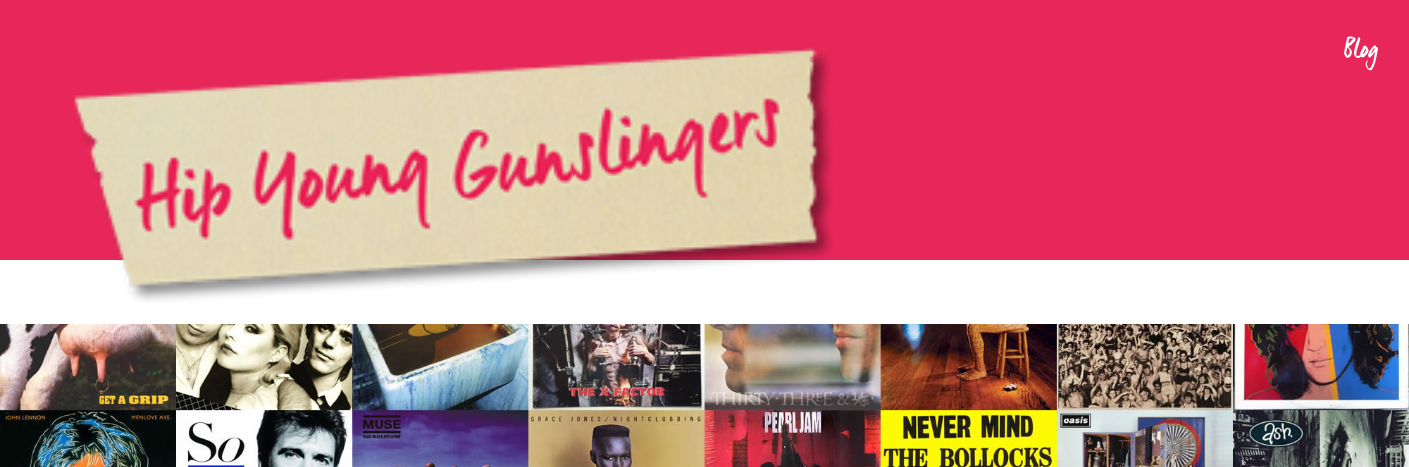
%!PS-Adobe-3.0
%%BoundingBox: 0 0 1409 467
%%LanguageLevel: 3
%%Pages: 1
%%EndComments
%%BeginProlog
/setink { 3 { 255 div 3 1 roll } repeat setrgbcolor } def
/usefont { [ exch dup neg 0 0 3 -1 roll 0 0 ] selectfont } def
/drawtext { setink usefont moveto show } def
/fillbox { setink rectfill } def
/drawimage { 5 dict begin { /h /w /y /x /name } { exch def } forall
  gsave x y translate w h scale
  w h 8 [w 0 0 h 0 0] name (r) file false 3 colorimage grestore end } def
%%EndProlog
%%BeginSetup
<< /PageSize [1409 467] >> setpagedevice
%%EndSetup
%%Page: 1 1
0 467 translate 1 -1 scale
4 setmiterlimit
0 0 1409 467 255 255 255 fillbox
0 0 1409 260 231 39 90 fillbox
(assets/img1.rgb) 74 47 760 256 drawimage
(Blog) 1344 57 /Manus-Regular 28 255 255 255 drawtext
(assets/img2.rgb) 0 324 1409 143 drawimage
showpage
%%EOF
